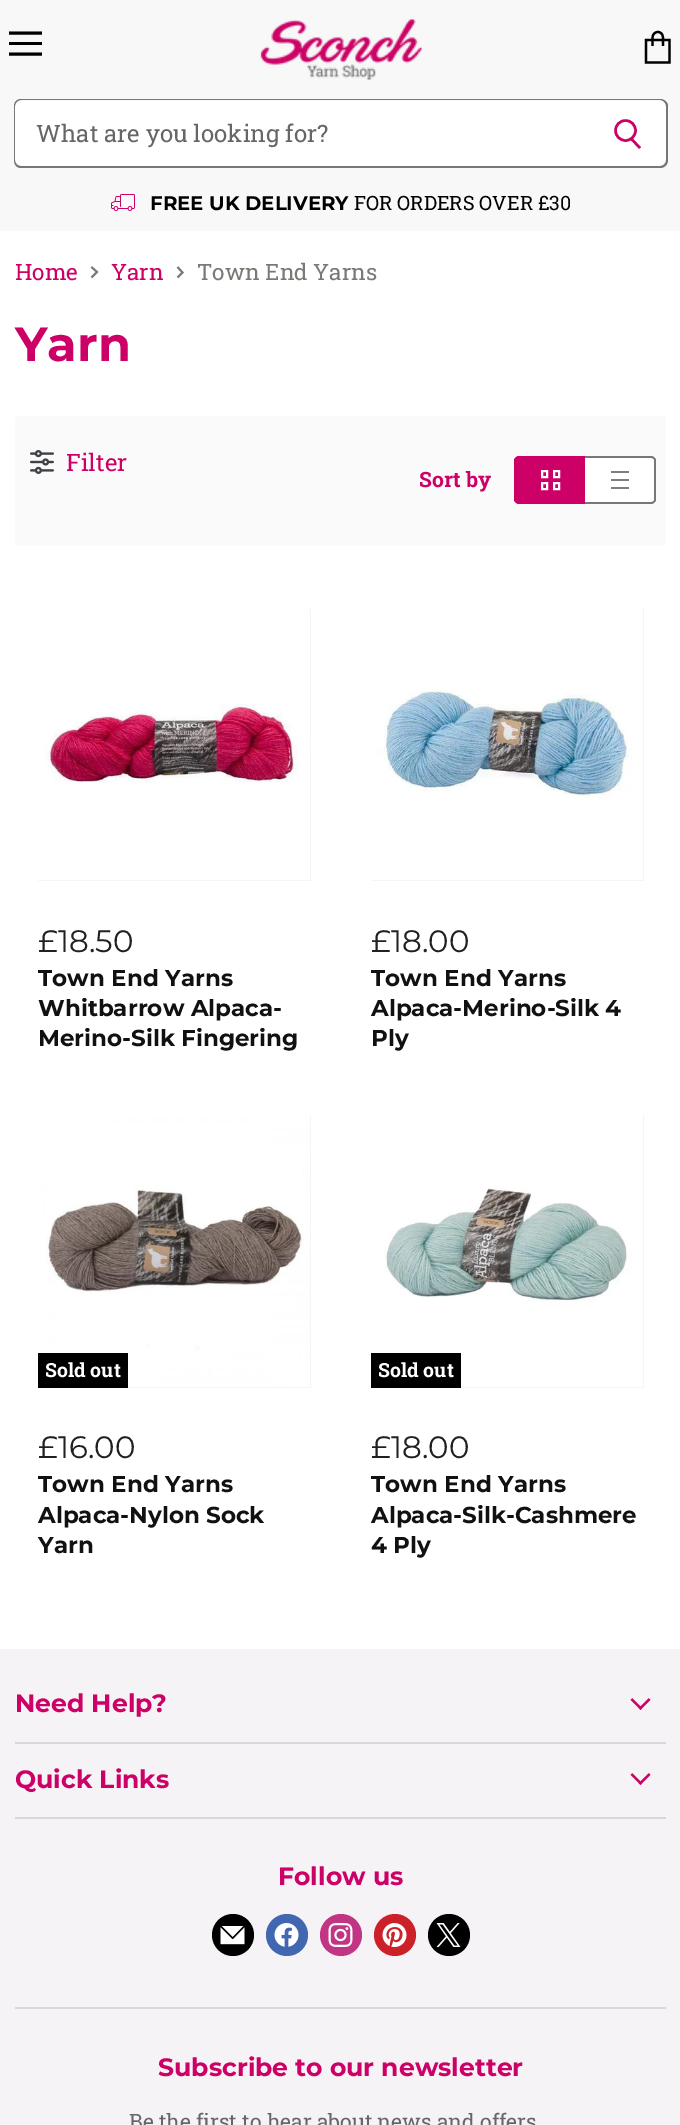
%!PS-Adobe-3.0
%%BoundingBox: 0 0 680 2125
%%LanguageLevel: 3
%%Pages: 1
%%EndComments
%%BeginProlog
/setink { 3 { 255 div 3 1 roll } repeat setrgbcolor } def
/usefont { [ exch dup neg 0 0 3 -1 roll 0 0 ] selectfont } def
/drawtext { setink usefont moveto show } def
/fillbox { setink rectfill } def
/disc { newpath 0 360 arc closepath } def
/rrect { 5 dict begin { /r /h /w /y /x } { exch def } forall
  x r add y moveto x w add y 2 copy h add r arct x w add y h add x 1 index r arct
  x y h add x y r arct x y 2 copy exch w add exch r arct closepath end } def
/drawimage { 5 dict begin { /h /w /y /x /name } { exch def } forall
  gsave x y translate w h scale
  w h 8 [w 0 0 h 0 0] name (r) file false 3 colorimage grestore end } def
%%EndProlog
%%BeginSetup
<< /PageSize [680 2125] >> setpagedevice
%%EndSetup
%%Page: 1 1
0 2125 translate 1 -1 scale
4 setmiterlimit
0 0 680 2125 255 255 255 fillbox
0 0 680 231 248 248 248 fillbox
0 0 0 setink
3 setlinewidth
2 setlinecap
1 setlinejoin
40.5 33 moveto 10.5 33 lineto stroke
9 42 33 3 0 0 0 fillbox
40.5 54 moveto 10.5 54 lineto stroke
2.2 setlinewidth
0 setlinecap
0 setlinejoin
646 40 moveto 669.5 40 lineto 669.5 62.5 lineto 646 62.5 lineto closepath 663 46 moveto 663 38 lineto 663 34 660.5 32 658 32 curveto 655 32 652.5 34 652.5 38 curveto 652.5 46 lineto stroke
(assets/img1.rgb) 260 19 162 61 drawimage
255 255 255 setink
21 101 moveto 588 101 lineto 588 167 lineto 21 167 lineto 17.5 167 15 164.5 15 161 curveto 15 107 lineto 15 103.5 17.5 101 21 101 curveto closepath fill
119 119 119 setink
21 99 moveto 588 99 lineto 588 168 lineto 21 168 lineto 17 168 14 165 14 160 curveto 14 106 lineto 14 102 17 99 21 99 curveto closepath 21 100 moveto 588 100 lineto 588 166 lineto 21 166 lineto 18 166 15 164 15 160 curveto 15 106 lineto 15 103 18 100 21 100 curveto closepath eofill
(What are you looking for?) 36 142 /RobotoSlab-Regular 24 102 102 102 drawtext
255 255 255 setink
588 101 moveto 660 101 lineto 663.5 101 666 103.5 666 107 curveto 666 161 lineto 666 164.5 663.5 167 660 167 curveto 588 167 lineto closepath fill
119 119 119 setink
588 99 moveto 660 99 lineto 664 99 668 102 668 106 curveto 668 160 lineto 668 165 664 168 660 168 curveto 588 168 lineto closepath 588 100 moveto 660 100 lineto 663 100 666 103 666 106 curveto 666 160 lineto 666 164 663 166 660 166 curveto 588 166 lineto closepath eofill
204 0 102 setink
2.5 setlinewidth
640 148 moveto 631.5 139 lineto stroke
625.5 130.5 10 disc stroke
(assets/img2.rgb) 111 194 24 17 drawimage
(FREE UK DELIVERY) 150 210 /Montserrat-Bold 19.75 0 0 0 drawtext
(FOR ORDERS OVER £30) 354 210 /RobotoSlab-Regular 19.75 0 0 0 drawtext
(Home) 15 280 /RobotoSlab-Regular 22.5 204 0 102 drawtext
124 120 115 setink
1.9 setlinewidth
91.5 277.5 moveto 97 272 lineto 91.5 267 lineto stroke
(Yarn) 111 280 /RobotoSlab-Regular 22.5 204 0 102 drawtext
124 120 115 setink
177.5 277.5 moveto 182.5 272.5 lineto 177.5 267 lineto stroke
(Town End Yarns) 197 280 /RobotoSlab-Regular 22.5 124 120 115 drawtext
(Yarn) 15 361 /Montserrat-Bold 48 204 0 102 drawtext
250 250 250 setink
15 416 651 130 4 rrect fill
(assets/img3.rgb) 30 450 24 24 drawimage
(Filter) 66 471 /RobotoSlab-Regular 24 204 0 102 drawtext
(Sort by) 419 487 /RobotoSlab-Bold 21.1 204 0 102 drawtext
520 456 moveto 585 456 lineto 585 504 lineto 520 504 lineto 517 504 515 502 515 499 curveto 515 461 lineto 515 458 517 456 520 456 curveto closepath fill
519 456 moveto 585 456 lineto 585 504 lineto 519 504 lineto 517 504 514 502 514 500 curveto 514 460 lineto 514 458 517 456 519 456 curveto closepath 519 458 moveto 585 458 lineto 585 502 lineto 519 502 lineto 517 502 516 501 516 500 curveto 516 460 lineto 516 459 517 458 519 458 curveto closepath eofill
255 255 255 setink
2 setlinewidth
542 471 5 6 rectstroke
554 471 5 6 rectstroke
542 483 5 6 rectstroke
554 483 5 6 rectstroke
585 456 moveto 651 456 lineto 654 456 656 458 656 461 curveto 656 499 lineto 656 502 654 504 651 504 curveto 585 504 lineto closepath fill
119 119 119 setink
585 456 moveto 651 456 lineto 653 456 656 458 656 460 curveto 656 500 lineto 656 502 653 504 651 504 curveto 585 504 lineto closepath 585 458 moveto 651 458 lineto 653 458 654 459 654 460 curveto 654 500 lineto 654 501 653 502 651 502 curveto 585 502 lineto closepath eofill
611 471 18 2 126 126 126 fillbox
611 479 18 2 126 126 126 fillbox
611 487 18 2 126 126 126 fillbox
38 608 273 273 245 245 245 fillbox
(assets/img4.rgb) 38 608 272 272 drawimage
(£18.50) 38 952 /Montserrat-Regular 31 33 33 33 drawtext
(Town End Yarns) 38 986 /Montserrat-Bold 23 17 17 17 drawtext
(Whitbarrow Alpaca-) 38 1016 /Montserrat-Bold 23 17 17 17 drawtext
(Merino-Silk Fingering) 38 1046 /Montserrat-Bold 23 17 17 17 drawtext
371 608 273 273 245 245 245 fillbox
(assets/img5.rgb) 371 608 272 272 drawimage
(£18.00) 371 952 /Montserrat-Regular 31 33 33 33 drawtext
(Town End Yarns) 371 986 /Montserrat-Bold 23 17 17 17 drawtext
(Alpaca-Merino-Silk 4) 371 1016 /Montserrat-Bold 23 17 17 17 drawtext
(Ply) 371 1046 /Montserrat-Bold 23 17 17 17 drawtext
128 1115 183 273 245 245 245 fillbox
(assets/img6.rgb) 38 1115 272 272 drawimage
38 1353 90 35 0 0 0 fillbox
(Sold out) 45 1377 /RobotoSlab-Bold 19.5 255 255 255 drawtext
(£16.00) 38 1458 /Montserrat-Regular 31 33 33 33 drawtext
(Town End Yarns) 38 1492 /Montserrat-Bold 23 17 17 17 drawtext
(Alpaca-Nylon Sock) 38 1523 /Montserrat-Bold 23 17 17 17 drawtext
(Yarn) 38 1553 /Montserrat-Bold 23 17 17 17 drawtext
461 1115 183 273 245 245 245 fillbox
(assets/img7.rgb) 371 1115 272 272 drawimage
371 1353 90 35 0 0 0 fillbox
(Sold out) 378 1377 /RobotoSlab-Bold 19.5 255 255 255 drawtext
(£18.00) 371 1458 /Montserrat-Regular 31 33 33 33 drawtext
(Town End Yarns) 371 1492 /Montserrat-Bold 23 17 17 17 drawtext
(Alpaca-Silk-Cashmere) 371 1523 /Montserrat-Bold 23 17 17 17 drawtext
(4 Ply) 371 1553 /Montserrat-Bold 23 17 17 17 drawtext
0 1649 680 476 245 243 246 fillbox
15 1742 651 2 216 215 217 fillbox
(Need Help?) 15 1712 /Montserrat-Bold 25.1 204 0 102 drawtext
(assets/img8.rgb) 630 1698 21 12 drawimage
15 1817 651 2 216 215 217 fillbox
(Quick Links) 15 1788 /Montserrat-Bold 25.1 204 0 102 drawtext
(assets/img8.rgb) 630 1773 21 12 drawimage
15 2007 651 2 216 215 217 fillbox
(Follow us) 278 1885 /Montserrat-Bold 25.1 204 0 102 drawtext
0 0 0 setink
233 1935 21 disc fill
(assets/img9.rgb) 220 1926 25 19 drawimage
66 103 177 setink
287 1935 21 disc fill
(assets/img10.rgb) 274 1923 25 24 drawimage
193 53 132 setink
341 1935 21 disc fill
(assets/img11.rgb) 328 1923 25 24 drawimage
204 33 41 setink
395 1935 21 disc fill
(assets/img12.rgb) 382 1923 25 25 drawimage
0 0 0 setink
449 1935 21 disc fill
(assets/img13.rgb) 436 1923 25 24 drawimage
(Subscribe to our newsletter) 158 2076 /Montserrat-Bold 25.1 204 0 102 drawtext
(Be the first to hear about news and offers) 129 2129 /RobotoSlab-Regular 21.1 102 102 102 drawtext
showpage
%%EOF
